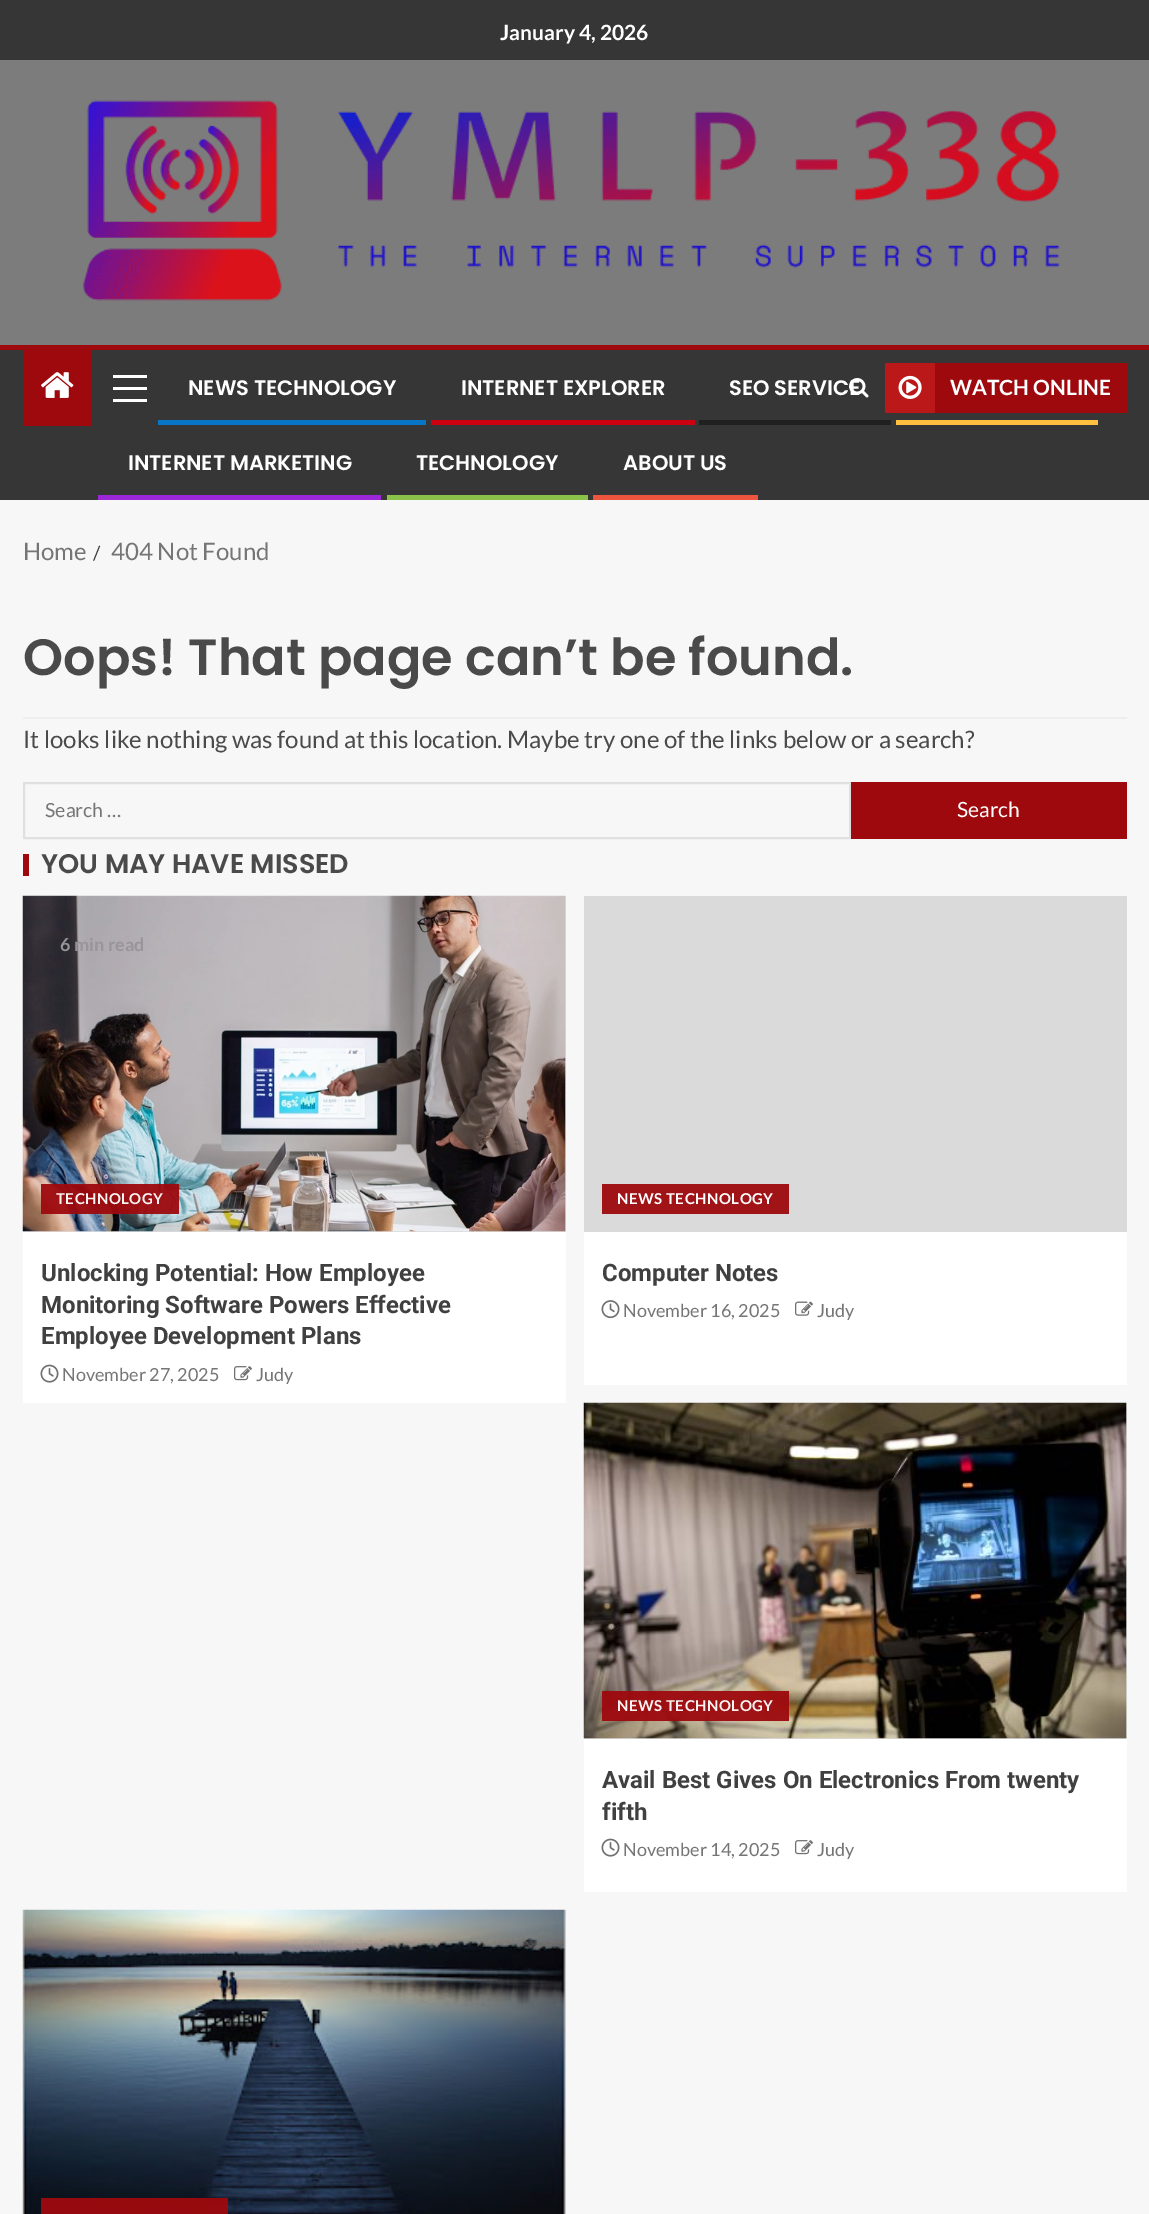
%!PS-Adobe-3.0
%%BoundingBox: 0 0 1149 2214
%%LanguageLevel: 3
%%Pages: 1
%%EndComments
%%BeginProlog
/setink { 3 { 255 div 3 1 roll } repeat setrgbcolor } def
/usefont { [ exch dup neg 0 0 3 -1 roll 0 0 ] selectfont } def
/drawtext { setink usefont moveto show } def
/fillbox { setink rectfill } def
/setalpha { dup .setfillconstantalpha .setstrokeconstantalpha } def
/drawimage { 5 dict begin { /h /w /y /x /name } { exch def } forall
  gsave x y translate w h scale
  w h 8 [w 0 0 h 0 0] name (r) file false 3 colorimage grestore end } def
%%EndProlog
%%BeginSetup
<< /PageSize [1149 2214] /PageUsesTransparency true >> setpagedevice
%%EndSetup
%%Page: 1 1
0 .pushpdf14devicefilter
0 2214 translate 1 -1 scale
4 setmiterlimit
0 0 1149 2214 247 247 247 fillbox
0 0 1149 60 54 54 54 fillbox
(January 4, 2026) 500 40 /Lato-Bold 21 255 255 255 drawtext
0 60 1149 285 124 124 124 fillbox
(assets/img1.rgb) 83 100 977 201 drawimage
0 350 1149 150 54 54 54 fillbox
0 345 1149 5 157 9 13 fillbox
23 350 69 76 157 9 13 fillbox
(assets/img2.rgb) 41 372 33 26 drawimage
113 387 34 3 255 255 255 fillbox
113 375 34 3 255 255 255 fillbox
113 399 34 3 255 255 255 fillbox
(NEWS TECHNOLOGY) 188 395 /Poppins-SemiBold 21 255 255 255 drawtext
158 420 268 5 7 118 198 fillbox
(INTERNET EXPLORER) 461 395 /Poppins-SemiBold 21 255 255 255 drawtext
431 420 264 5 204 0 16 fillbox
(SEO SERVICE) 729 395 /Poppins-SemiBold 21 255 255 255 drawtext
699 420 192 5 32 32 32 fillbox
896 420 202 5 255 191 63 fillbox
(INTERNET MARKETING) 128 470 /Poppins-SemiBold 21 255 255 255 drawtext
98 495 283 5 156 39 217 fillbox
(TECHNOLOGY) 416 470 /Poppins-SemiBold 21 255 255 255 drawtext
387 495 201 5 139 195 74 fillbox
(ABOUT US) 623 470 /Poppins-SemiBold 21 255 255 255 drawtext
593 495 165 5 237 85 63 fillbox
(assets/img3.rgb) 849 378 20 20 drawimage
885 363 50 50 187 25 25 fillbox
(assets/img4.rgb) 898 375 24 24 drawimage
935 363 192 50 157 9 13 fillbox
(WATCH ONLINE) 950 395 /Lato-Bold 21 255 255 255 drawtext
(Home) 23 560 /Lato-Regular 24 117 117 117 drawtext
(/) 93 560 /Lato-Regular 19.5 57 62 70 drawtext
(404 Not Found) 111 560 /Lato-Regular 24 117 117 117 drawtext
23 717 1104 2 238 238 238 fillbox
(Oops! That page can’t be found.) 23 675 /Poppins-SemiBold 51 74 74 74 drawtext
(It looks like nothing was found at this location. Maybe try one of the links below or a search?) 23 748 /Lato-Regular 24 74 74 74 drawtext
224 224 224 setink
2 setlinewidth
24 783 826 55 rectstroke
(Search …) 45 817 /Lato-Regular 19.5 117 117 117 drawtext
851 782 276 57 157 9 13 fillbox
(Search) 957 817 /Lato-Regular 21 255 255 255 drawtext
23 854 6 22 157 9 13 fillbox
(YOU MAY HAVE MISSED) 41 873 /Poppins-SemiBold 27 74 74 74 drawtext
23 896 543 336 218 218 218 fillbox
(assets/img5.rgb) 22 895 544 337 drawimage
(6 min read) 60 951 /Lato-Bold 18 152 148 153 drawtext
0.95 setalpha
41 1184 138 30 157 9 13 fillbox
/Lato-Bold 15 usefont
1 setalpha
250 243 243 setink
56 1204 moveto 0.5 0 (TECHNOLOGY) ashow
23 1232 543 171 255 255 255 fillbox
(Unlocking Potential: How Employee) 41 1281 /Roboto-Bold 24 64 64 64 drawtext
(Monitoring Software Powers Effective) 41 1313 /Roboto-Bold 24 64 64 64 drawtext
(Employee Development Plans) 41 1344 /Roboto-Bold 24 64 64 64 drawtext
(assets/img6.rgb) 40 1364 19 19 drawimage
(November 27, 2025) 62 1381 /Lato-Regular 18 117 117 117 drawtext
(assets/img7.rgb) 234 1366 18 15 drawimage
(Judy) 256 1381 /Lato-Regular 18 117 117 117 drawtext
584 896 543 336 218 218 218 fillbox
602 1184 187 30 160 19 23 fillbox
/Lato-Bold 15 usefont
255 255 255 setink
617 1204 moveto 0.5 0 (NEWS TECHNOLOGY) ashow
584 1232 543 153 255 255 255 fillbox
(Computer Notes) 602 1281 /Roboto-Bold 24 64 64 64 drawtext
(assets/img8.rgb) 601 1300 19 19 drawimage
(November 16, 2025) 623 1317 /Lato-Regular 18 117 117 117 drawtext
(assets/img9.rgb) 795 1301 18 15 drawimage
(Judy) 817 1317 /Lato-Regular 18 117 117 117 drawtext
584 1403 543 336 218 218 218 fillbox
(assets/img10.rgb) 583 1402 544 337 drawimage
0.95 setalpha
602 1691 187 30 157 9 13 fillbox
/Lato-Bold 15 usefont
1 setalpha
250 243 243 setink
617 1711 moveto 0.5 0 (NEWS TECHNOLOGY) ashow
584 1739 543 153 255 255 255 fillbox
(Avail Best Gives On Electronics From twenty) 602 1788 /Roboto-Bold 24 64 64 64 drawtext
(fifth) 602 1820 /Roboto-Bold 24 64 64 64 drawtext
(assets/img6.rgb) 601 1838 19 19 drawimage
(November 14, 2025) 623 1856 /Lato-Regular 18 117 117 117 drawtext
(assets/img7.rgb) 795 1840 18 15 drawimage
(Judy) 817 1856 /Lato-Regular 18 117 117 117 drawtext
565 1910 1 304 218 218 218 fillbox
(assets/img11.rgb) 22 1909 544 305 drawimage
0.95 setalpha
41 2198 187 16 157 9 13 fillbox
.poppdf14devicefilter showpage
%%EOF
